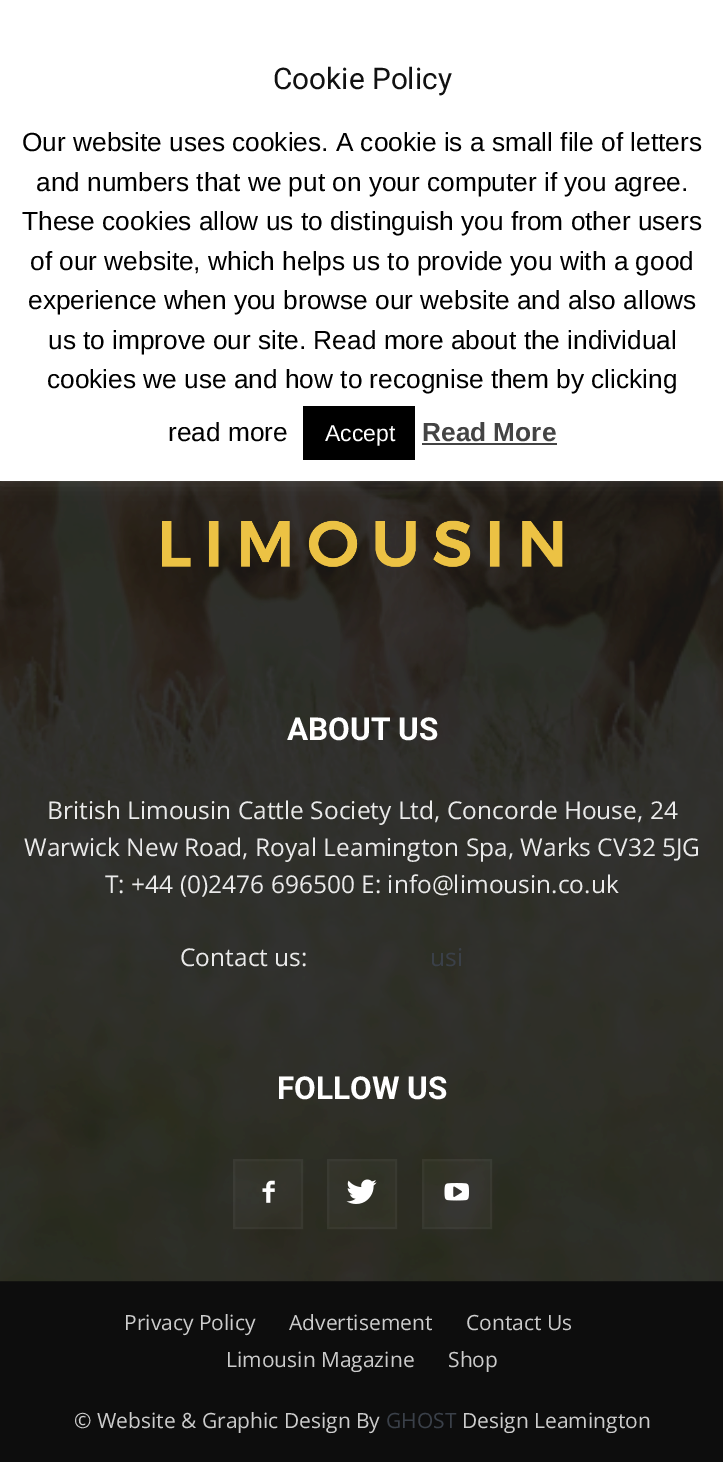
%!PS-Adobe-3.0
%%BoundingBox: 0 0 723 1462
%%LanguageLevel: 3
%%Pages: 1
%%EndComments
%%BeginProlog
/setink { 3 { 255 div 3 1 roll } repeat setrgbcolor } def
/usefont { [ exch dup neg 0 0 3 -1 roll 0 0 ] selectfont } def
/drawtext { setink usefont moveto show } def
/fillbox { setink rectfill } def
/setalpha { dup .setfillconstantalpha .setstrokeconstantalpha } def
/rrect { 5 dict begin { /r /h /w /y /x } { exch def } forall
  x r add y moveto x w add y 2 copy h add r arct x w add y h add x 1 index r arct
  x y h add x y r arct x y 2 copy exch w add exch r arct closepath end } def
/softshadow { 12 dict begin { /a /b /q /h /w /y /x } { exch def } forall gsave /was 0 def
  9 -2 -9 { dup b mul 4 div /e exch def 1 sub .425 mul 2.718 exch exp 1 add a .99 .min exch div /now exch def
    1 1 now sub 1 was sub div sub setalpha /was now def
    w h .min e 2 mul add 0 gt { x e sub y e sub w e 2 mul add h e 2 mul add
      q e add b .6 mul add w h .min 2 div e add .min 0 .max rrect fill } if } for grestore end } def
/drawimage { 5 dict begin { /h /w /y /x /name } { exch def } forall
  gsave x y translate w h scale
  w h 8 [w 0 0 h 0 0] name (r) file false 3 colorimage grestore end } def
%%EndProlog
%%BeginSetup
<< /PageSize [723 1462] /PageUsesTransparency true >> setpagedevice
%%EndSetup
%%Page: 1 1
0 .pushpdf14devicefilter
0 1462 translate 1 -1 scale
4 setmiterlimit
0 0 723 1462 13 13 13 fillbox
0 481 723 800 17 17 17 fillbox
(assets/img1.rgb) 0 481 723 801 drawimage
172 171 171 setink
0 -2 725 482 0 9 0.3 softshadow
0 0 723 481 255 255 255 fillbox
(Cookie Policy) 273 89 /Roboto-Regular 29.75 17 17 17 drawtext
(Our website uses cookies. A cookie is a small file of letters) 22 151 /LiberationSans-Regular 26.25 0 0 0 drawtext
(and numbers that we put on your computer if you agree.) 36 191 /LiberationSans-Regular 26.25 0 0 0 drawtext
(These cookies allow us to distinguish you from other users) 22 230 /LiberationSans-Regular 26.25 0 0 0 drawtext
(of our website, which helps us to provide you with a good) 30 270 /LiberationSans-Regular 26.25 0 0 0 drawtext
(experience when you browse our website and also allows) 28 309 /LiberationSans-Regular 26.25 0 0 0 drawtext
(us to improve our site. Read more about the individual) 48 349 /LiberationSans-Regular 26.25 0 0 0 drawtext
(cookies we use and how to recognise them by clicking) 47 388 /LiberationSans-Regular 26.25 0 0 0 drawtext
(read more) 168 441 /LiberationSans-Regular 26.25 0 0 0 drawtext
303 406 112 54 0 0 0 fillbox
(Accept) 325 441 /LiberationSans-Regular 23 255 255 255 drawtext
(Read More) 422 441 /LiberationSans-Bold 26.25 68 68 68 drawtext
422 443 135 2 68 68 68 fillbox
(assets/img2.rgb) 162 520 401 47 drawimage
(ABOUT US) 287 740 /Roboto-Bold 31.5 255 255 255 drawtext
(British Limousin Cattle Society Ltd, Concorde House, 24) 47 819 /OpenSans-Regular 24.5 234 234 234 drawtext
(Warwick New Road, Royal Leamington Spa, Warks CV32 5JG) 24 856 /OpenSans-Regular 24.5 234 234 234 drawtext
(T: +44 \(0\)2476 696500 E: info@limousin.co.uk) 105 893 /OpenSans-Regular 24.5 234 234 234 drawtext
(Contact us:) 180 966 /OpenSans-Regular 24.5 234 234 234 drawtext
(usi) 430 966 /OpenSans-Regular 24.5 58 64 73 drawtext
(FOLLOW US) 277 1099 /Roboto-Bold 31.5 255 255 255 drawtext
0.03 setalpha
233 1159 70 70 255 255 255 fillbox
1 setalpha
(assets/img3.rgb) 262 1180 13 23 drawimage
0.03 setalpha
2 setlinewidth
234 1160 68 68 rectstroke
327 1159 70 70 255 255 255 fillbox
1 setalpha
(assets/img4.rgb) 346 1179 31 25 drawimage
0.03 setalpha
328 1160 68 68 rectstroke
422 1159 70 70 255 255 255 fillbox
1 setalpha
(assets/img5.rgb) 444 1183 25 18 drawimage
0.03 setalpha
423 1160 68 68 rectstroke
1 setalpha
(Privacy Policy) 124 1330 /OpenSans-Regular 21 204 204 204 drawtext
(Advertisement) 289 1330 /OpenSans-Regular 21 204 204 204 drawtext
(Contact Us) 466 1330 /OpenSans-Regular 21 204 204 204 drawtext
(Limousin Magazine) 226 1367 /OpenSans-Regular 21 204 204 204 drawtext
(Shop) 448 1367 /OpenSans-Regular 21 204 204 204 drawtext
(© Website & Graphic Design By) 74 1428 /OpenSans-Regular 21 204 204 204 drawtext
(GHOST) 386 1428 /OpenSans-Regular 21 58 64 73 drawtext
(Design Leamington) 462 1428 /OpenSans-Regular 21 204 204 204 drawtext
.poppdf14devicefilter showpage
%%EOF
